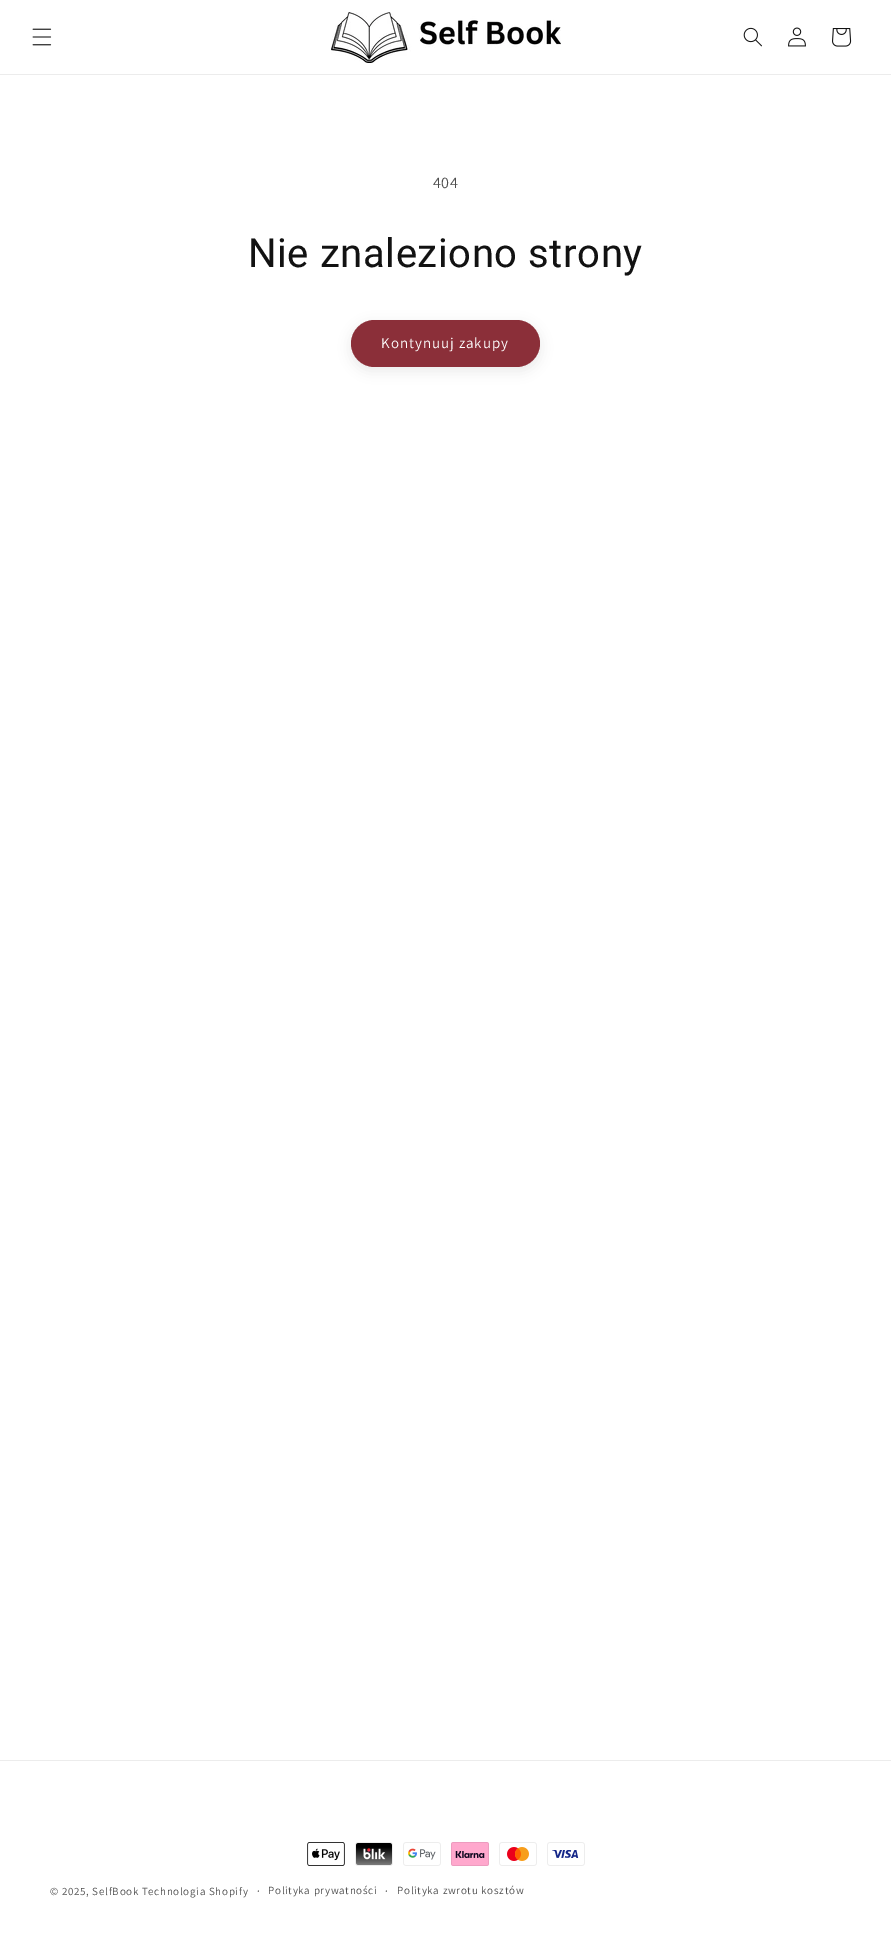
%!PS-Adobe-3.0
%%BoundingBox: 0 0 891 1937
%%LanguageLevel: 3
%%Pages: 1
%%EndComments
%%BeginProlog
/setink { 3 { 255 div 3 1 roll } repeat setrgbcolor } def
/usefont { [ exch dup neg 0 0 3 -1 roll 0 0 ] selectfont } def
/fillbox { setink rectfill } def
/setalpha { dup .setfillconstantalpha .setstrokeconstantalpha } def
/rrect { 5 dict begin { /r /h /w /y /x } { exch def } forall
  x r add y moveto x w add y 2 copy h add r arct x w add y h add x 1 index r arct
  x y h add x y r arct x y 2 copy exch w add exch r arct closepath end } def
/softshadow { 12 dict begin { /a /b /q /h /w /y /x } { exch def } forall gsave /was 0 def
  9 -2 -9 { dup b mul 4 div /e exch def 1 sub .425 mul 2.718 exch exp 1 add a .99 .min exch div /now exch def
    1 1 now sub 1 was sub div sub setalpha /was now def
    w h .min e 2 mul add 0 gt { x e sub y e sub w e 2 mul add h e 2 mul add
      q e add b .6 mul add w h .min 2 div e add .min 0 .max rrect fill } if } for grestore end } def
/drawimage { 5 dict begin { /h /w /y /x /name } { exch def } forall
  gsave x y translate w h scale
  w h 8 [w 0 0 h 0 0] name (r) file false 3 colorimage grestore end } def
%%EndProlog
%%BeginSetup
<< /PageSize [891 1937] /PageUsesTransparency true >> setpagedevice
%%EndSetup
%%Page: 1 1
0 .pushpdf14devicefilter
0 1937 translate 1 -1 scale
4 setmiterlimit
0 0 891 1937 255 255 255 fillbox
0 74 891 1 236 236 236 fillbox
(assets/img1.rgb) 32 28 20 18 drawimage
(assets/img2.rgb) 331 12 230 51 drawimage
(assets/img3.rgb) 743 27 19 20 drawimage
(assets/img4.rgb) 788 27 18 20 drawimage
(assets/img5.rgb) 832 28 20 19 drawimage
/Assistant-Regular 16 usefont
77 77 77 setink
433 188 moveto 0.6 0 (404) ashow
/Roboto-Regular 40 usefont
18 18 18 setink
248 267 moveto 0.6 0 (Nie znaleziono strony) ashow
0 0 0 setink
351 324 189 47 23.5 6 0.08 softshadow
139 47 57 setink
351 320 189 47 23.5 rrect fill
/Assistant-Regular 15 usefont
255 255 255 setink
381 348 moveto 1 0 (Kontynuuj zakupy) ashow
0 1760 891 1 236 236 236 fillbox
(assets/img6.rgb) 307 1842 38 24 drawimage
(assets/img7.rgb) 355 1842 38 24 drawimage
(assets/img8.rgb) 403 1842 38 24 drawimage
(assets/img9.rgb) 451 1842 38 24 drawimage
(assets/img10.rgb) 499 1842 38 24 drawimage
(assets/img11.rgb) 547 1842 38 24 drawimage
/Assistant-Regular 11 usefont
77 77 77 setink
50 1895 moveto 0.7 0 (© 2025, SelfBook Technologia Shopify) ashow
/Assistant-Regular 12 usefont
257 1895 moveto 0.7 0 (·) ashow
/Assistant-Regular 11 usefont
268 1894 moveto 0.7 0 (Polityka prywatności) ashow
/Assistant-Regular 12 usefont
385 1895 moveto 0.7 0 (·) ashow
/Assistant-Regular 11 usefont
397 1894 moveto 0.7 0 (Polityka zwrotu kosztów) ashow
.poppdf14devicefilter showpage
%%EOF
